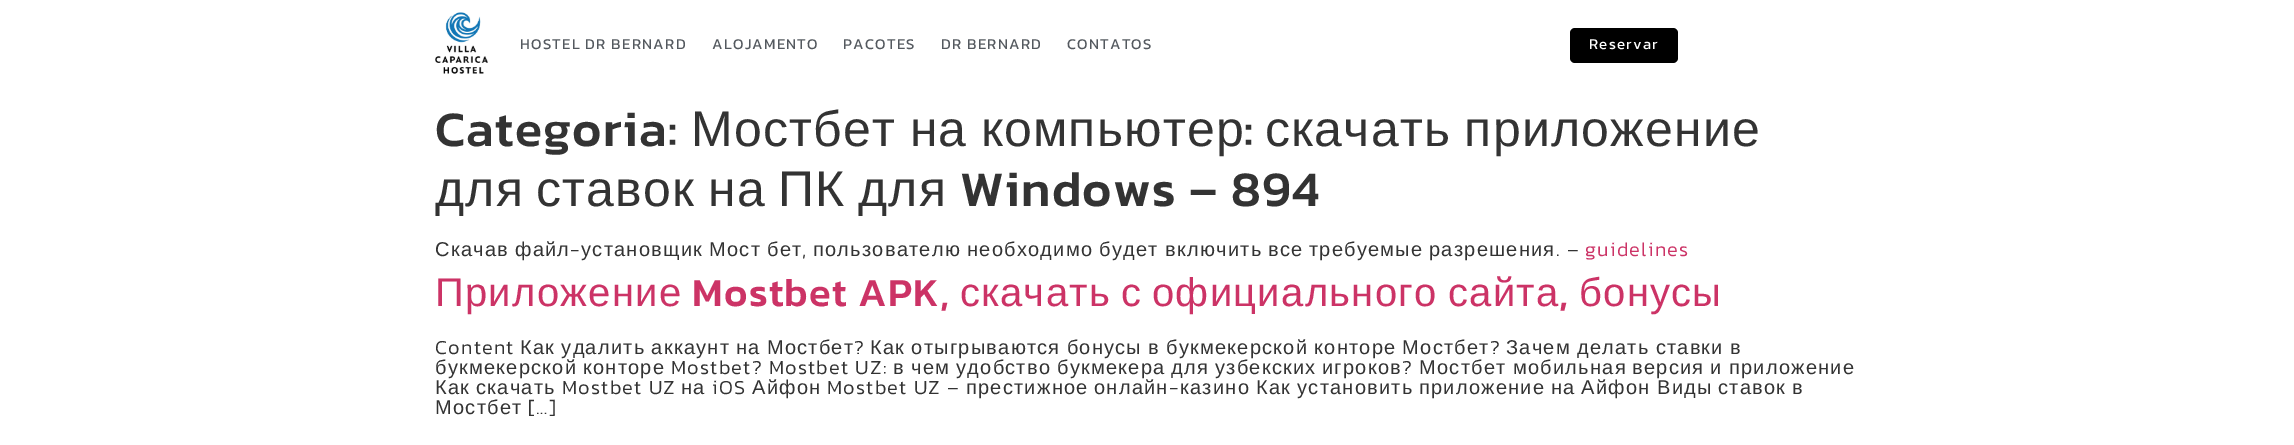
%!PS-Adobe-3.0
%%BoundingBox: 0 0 2294 445
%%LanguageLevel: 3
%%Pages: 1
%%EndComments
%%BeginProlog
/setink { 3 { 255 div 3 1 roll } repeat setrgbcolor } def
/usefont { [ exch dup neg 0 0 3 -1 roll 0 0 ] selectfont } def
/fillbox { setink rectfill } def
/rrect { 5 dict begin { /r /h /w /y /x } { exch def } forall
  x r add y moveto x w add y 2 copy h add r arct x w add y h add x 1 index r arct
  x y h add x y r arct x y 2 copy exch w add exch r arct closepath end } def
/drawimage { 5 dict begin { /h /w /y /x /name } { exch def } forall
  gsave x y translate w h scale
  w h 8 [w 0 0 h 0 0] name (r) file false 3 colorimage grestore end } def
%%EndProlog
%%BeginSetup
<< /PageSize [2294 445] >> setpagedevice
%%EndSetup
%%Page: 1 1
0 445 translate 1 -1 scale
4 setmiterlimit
0 0 2294 445 255 255 255 fillbox
(assets/img1.rgb) 435 12 53 62 drawimage
/Kanit-Regular 15 usefont
84 89 95 setink
520 49 moveto 1.25 0 (HOSTEL DR BERNARD) ashow
712 49 moveto 1.25 0 (ALOJAMENTO) ashow
843 49 moveto 1.25 0 (PACOTES) ashow
941 49 moveto 1.25 0 (DR BERNARD) ashow
1067 49 moveto 1.25 0 (CONTATOS) ashow
0 0 0 setink
1570 28 108 35 5 rrect fill
255 255 255 setink
1589 49 moveto 1.25 0 (Reservar) ashow
/Kanit-Medium 50 usefont
51 51 51 setink
435 146 moveto 1.25 0 (Categoria:) ashow
/LiberationSans-Regular 50 usefont
691 146 moveto -2 0 32 1.25 0 (Мостбет на компьютер) awidthshow
/Kanit-Medium 50 usefont
1244 146 moveto 1.25 0 (:) ashow
/LiberationSans-Regular 50 usefont
1265 146 moveto -2 0 32 1.25 0 (скачать приложение) awidthshow
435 206 moveto 1.25 0 (для) ashow
536 206 moveto 1.25 0 (ставок) ashow
708 206 moveto 1.25 0 (на) ashow
778 206 moveto 1.25 0 (ПК) ashow
858 206 moveto 1.25 0 (для) ashow
/Kanit-Medium 50 usefont
960 206 moveto 1.25 0 (Windows – 894) ashow
/LiberationSans-Regular 20 usefont
435 256 moveto 1.25 0 (Скачав) ashow
515 256 moveto 1.25 0 (файл) ashow
/Kanit-Light 20 usefont
570 256 moveto 1.25 0 (-) ashow
/LiberationSans-Regular 20 usefont
581 256 moveto 1.25 0 (установщик) ashow
709 256 moveto 1.25 0 (Мост) ashow
767 256 moveto 1.25 0 (бет) ashow
813 256 moveto 1.25 0 (пользователю) ashow
967 256 moveto 1.25 0 (необходимо) ashow
1099 256 moveto 1.25 0 (будет) ashow
1165 256 moveto 1.25 0 (включить) ashow
1268 256 moveto 1.25 0 (все) ashow
1309 256 moveto 1.25 0 (требуемые) ashow
1429 256 moveto 1.25 0 (разрешения) ashow
/Kanit-Light 20 usefont
1556 256 moveto 1.25 0 (. –) ashow
204 51 102 setink
1585 256 moveto 1.25 0 (guidelines) ashow
51 51 51 setink
802 256 moveto 1.25 0 (,) ashow
/LiberationSans-Regular 40 usefont
204 51 102 setink
435 306 moveto 1.25 0 (Приложение) ashow
/Kanit-Medium 40 usefont
692 306 moveto 1.25 0 (Mostbet APK,) ashow
/LiberationSans-Regular 40 usefont
960 306 moveto 1.25 0 (скачать) ashow
1121 306 moveto 1.25 0 (с) ashow
1152 306 moveto 1.25 0 (официального) ashow
1448 306 moveto 1.25 0 (сайта) ashow
/Kanit-Medium 40 usefont
1559 306 moveto 1.25 0 (,) ashow
/LiberationSans-Regular 40 usefont
1579 306 moveto 1.25 0 (бонусы) ashow
/Kanit-Light 20 usefont
51 51 51 setink
435 354 moveto 1.25 0 (Content) ashow
/LiberationSans-Regular 20 usefont
520 354 moveto -0.75 0 32 1.25 0 (Как удалить аккаунт на Мостбет) awidthshow
/Kanit-Light 20 usefont
854 354 moveto 1.25 0 (?) ashow
/LiberationSans-Regular 20 usefont
870 354 moveto -0.75 0 32 1.25 0 (Как отыгрываются бонусы в букмекерской конторе Мостбет) awidthshow
/Kanit-Light 20 usefont
1490 354 moveto 1.25 0 (?) ashow
/LiberationSans-Regular 20 usefont
1506 354 moveto -0.75 0 32 1.25 0 (Зачем делать ставки в) awidthshow
435 374 moveto 1.25 0 (букмекерской) ashow
583 374 moveto 1.25 0 (конторе) ashow
/Kanit-Light 20 usefont
671 374 moveto 1.25 0 (Mostbet? Mostbet UZ:) ashow
/LiberationSans-Regular 20 usefont
893 374 moveto 1.25 0 (в) ashow
911 374 moveto 1.25 0 (чем) ashow
956 374 moveto 1.25 0 (удобство) ashow
1057 374 moveto 1.25 0 (букмекера) ashow
1171 374 moveto 1.25 0 (для) ashow
1215 374 moveto 1.25 0 (узбекских) ashow
1322 374 moveto 1.25 0 (игроков) ashow
/Kanit-Light 20 usefont
1402 374 moveto 1.25 0 (?) ashow
/LiberationSans-Regular 20 usefont
1419 374 moveto 1.25 0 (Мостбет) ashow
1513 374 moveto 1.25 0 (мобильная) ashow
1632 374 moveto 1.25 0 (версия) ashow
1710 374 moveto 1.25 0 (и) ashow
1729 374 moveto 1.25 0 (приложение) ashow
435 394 moveto 1.25 0 (Как) ashow
476 394 moveto 1.25 0 (скачать) ashow
/Kanit-Light 20 usefont
562 394 moveto 1.25 0 (Mostbet UZ) ashow
/LiberationSans-Regular 20 usefont
681 394 moveto 1.25 0 (на) ashow
/Kanit-Light 20 usefont
712 394 moveto 1.25 0 (iOS) ashow
/LiberationSans-Regular 20 usefont
752 394 moveto 1.25 0 (Айфон) ashow
/Kanit-Light 20 usefont
827 394 moveto 1.25 0 (Mostbet UZ –) ashow
/LiberationSans-Regular 20 usefont
966 394 moveto 1.25 0 (престижное) ashow
1094 394 moveto 1.25 0 (онлайн) ashow
/Kanit-Light 20 usefont
1169 394 moveto 1.25 0 (-) ashow
/LiberationSans-Regular 20 usefont
1180 394 moveto 1.25 0 (казино) ashow
1256 394 moveto 1.25 0 (Как) ashow
1297 394 moveto 1.25 0 (установить) ashow
1419 394 moveto 1.25 0 (приложение) ashow
1551 394 moveto 1.25 0 (на) ashow
1581 394 moveto 1.25 0 (Айфон) ashow
1657 394 moveto 1.25 0 (Виды) ashow
1718 394 moveto 1.25 0 (ставок) ashow
1792 394 moveto 1.25 0 (в) ashow
435 414 moveto 1.25 0 (Мостбет) ashow
/Kanit-Light 20 usefont
528 414 moveto 1.25 0 ([…]) ashow
showpage
%%EOF
